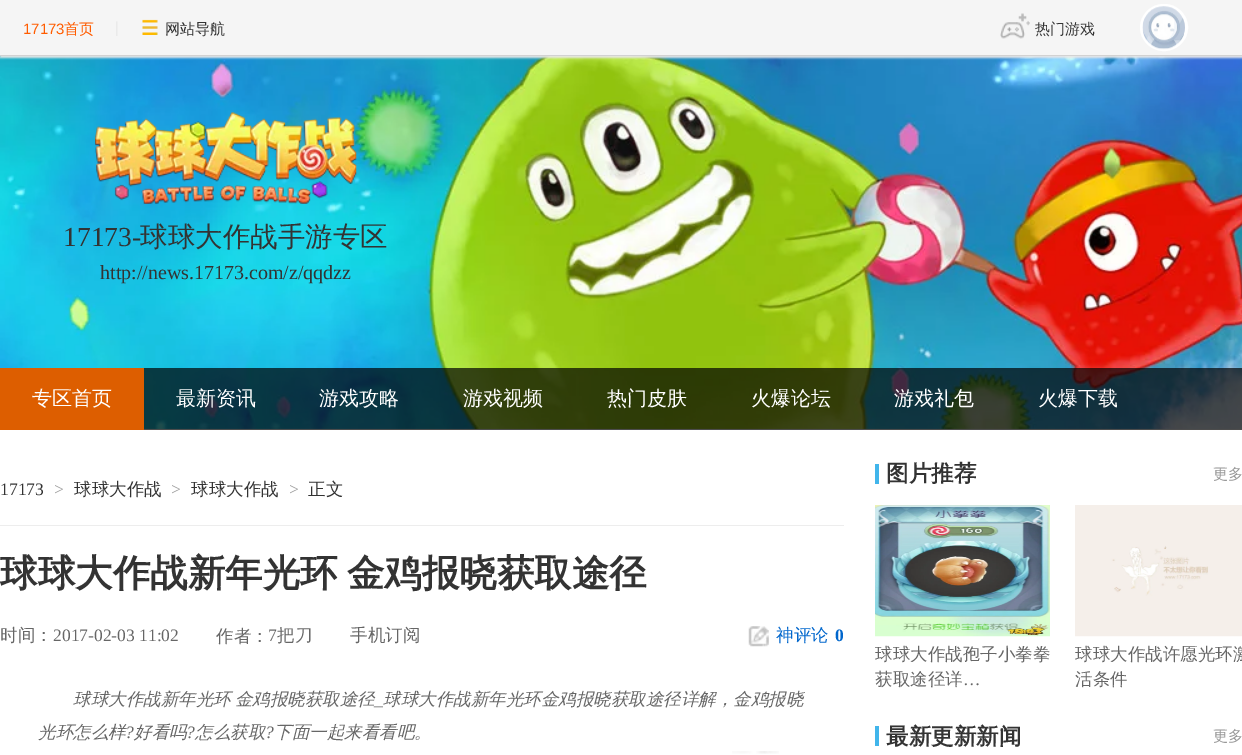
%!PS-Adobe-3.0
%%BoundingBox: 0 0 1242 755
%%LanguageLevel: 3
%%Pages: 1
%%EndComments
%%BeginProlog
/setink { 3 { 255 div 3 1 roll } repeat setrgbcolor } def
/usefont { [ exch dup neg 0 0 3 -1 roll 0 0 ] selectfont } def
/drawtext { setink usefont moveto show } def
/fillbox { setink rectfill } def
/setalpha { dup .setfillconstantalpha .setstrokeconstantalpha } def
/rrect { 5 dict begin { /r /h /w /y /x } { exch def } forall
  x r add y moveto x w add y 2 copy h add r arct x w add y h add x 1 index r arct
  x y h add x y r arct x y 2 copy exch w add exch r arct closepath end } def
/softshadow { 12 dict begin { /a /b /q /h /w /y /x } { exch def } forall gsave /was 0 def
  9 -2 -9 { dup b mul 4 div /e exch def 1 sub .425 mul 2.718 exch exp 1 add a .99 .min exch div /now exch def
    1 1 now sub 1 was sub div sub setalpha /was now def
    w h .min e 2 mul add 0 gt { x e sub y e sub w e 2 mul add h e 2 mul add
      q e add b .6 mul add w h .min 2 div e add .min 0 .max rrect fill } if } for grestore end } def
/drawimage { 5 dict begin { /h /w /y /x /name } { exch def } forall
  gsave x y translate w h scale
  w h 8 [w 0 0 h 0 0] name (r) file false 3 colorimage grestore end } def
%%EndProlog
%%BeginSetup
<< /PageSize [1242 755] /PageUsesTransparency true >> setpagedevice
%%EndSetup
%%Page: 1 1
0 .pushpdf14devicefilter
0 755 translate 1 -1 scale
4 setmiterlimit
0 0 1242 755 255 255 255 fillbox
(assets/img5.rgb) 0 56 1242 373 drawimage
232 230 230 setink
0 1 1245 57 0 1 1 softshadow
0 0 1242 55 245 245 245 fillbox
0 55 1242 1 210 210 210 fillbox
(17173) 23 34 /LiberationSans-Regular 15 255 92 0 drawtext
(首页) 64 34 /WenQuanYiZenHei-Medium 15 255 92 0 drawtext
(assets/img1.rgb) 116 21 2 15 drawimage
(assets/img2.rgb) 142 19 16 16 drawimage
(网站导航) 165 34 /WenQuanYiZenHei-Medium 15 51 51 51 drawtext
(assets/img3.rgb) 1000 13 30 26 drawimage
(热门游戏) 1035 34 /WenQuanYiZenHei-Medium 15 51 51 51 drawtext
255 255 255 setink
3 setlinewidth
1141.5 5.5 45 44 22 rrect stroke
(assets/img4.rgb) 1142 6 43 44 drawimage
(assets/img6.rgb) 144 428 1098 1 drawimage
(assets/img7.rgb) 95 112 262 92 drawimage
(17173-) 63 246 /LiberationSerif-Regular 27.5 51 51 51 drawtext
(球球大作战手游专区) 140 246 /WenQuanYiZenHei-Medium 27.5 51 51 51 drawtext
(http://news.17173.com/z/qqdzz) 100 279 /LiberationSerif-Regular 20 51 51 51 drawtext
0.7 setalpha
144 368 1098 62 0 0 0 fillbox
1 setalpha
0 368 144 62 221 94 0 fillbox
(专区首页) 32 405 /WenQuanYiZenHei-Medium 20 255 255 255 drawtext
(最新资讯) 176 405 /WenQuanYiZenHei-Medium 20 255 255 255 drawtext
(游戏攻略) 319 405 /WenQuanYiZenHei-Medium 20 255 255 255 drawtext
(游戏视频) 463 405 /WenQuanYiZenHei-Medium 20 255 255 255 drawtext
(热门皮肤) 607 405 /WenQuanYiZenHei-Medium 20 255 255 255 drawtext
(火爆论坛) 751 405 /WenQuanYiZenHei-Medium 20 255 255 255 drawtext
(游戏礼包) 894 405 /WenQuanYiZenHei-Medium 20 255 255 255 drawtext
(火爆下载) 1038 405 /WenQuanYiZenHei-Medium 20 255 255 255 drawtext
0 525 844 1 237 237 237 fillbox
(17173) 0 495 /LiberationSerif-Regular 17.5 51 51 51 drawtext
(>) 54 495 /LiberationSerif-Regular 17.5 152 152 152 drawtext
(球球大作战) 74 495 /WenQuanYiZenHei-Medium 17.5 51 51 51 drawtext
(>) 171 495 /LiberationSerif-Regular 17.5 152 152 152 drawtext
(球球大作战) 191 495 /WenQuanYiZenHei-Medium 17.5 51 51 51 drawtext
(>) 289 495 /LiberationSerif-Regular 17.5 152 152 152 drawtext
(正文) 308 495 /WenQuanYiZenHei-Medium 17.5 51 51 51 drawtext
/WenQuanYiZenHei-Bold 37.5 usefont
0 586 moveto -2 0 32 (球球大作战新年光环 金鸡报晓获取途径) widthshow
(时间：) 0 641 /WenQuanYiZenHei-Medium 17.5 102 102 102 drawtext
(2017-02-03 11:02) 53 641 /LiberationSerif-Regular 17.5 102 102 102 drawtext
(作者：) 216 642 /WenQuanYiZenHei-Medium 17.5 102 102 102 drawtext
(7) 268 641 /LiberationSerif-Regular 17.5 102 102 102 drawtext
(把刀) 277 641 /WenQuanYiZenHei-Medium 17.5 102 102 102 drawtext
(手机订阅) 350 641 /WenQuanYiZenHei-Medium 17.5 102 102 102 drawtext
(assets/img8.rgb) 748 626 21 21 drawimage
(神评论) 776 641 /WenQuanYiZenHei-Medium 17.5 0 102 204 drawtext
(0) 835 641 /LiberationSerif-Bold 17.5 0 102 204 drawtext
/WenQuanYiZenHei-MediumItalic 17.5 usefont
102 102 102 setink
73 705 moveto -1 0 32 (球球大作战新年光环 金鸡报晓获取途径) widthshow
(_) 374 705 /LiberationSerif-Italic 17.5 102 102 102 drawtext
(球球大作战新年光环金鸡报晓获取途径详解，金鸡报晓) 383 705 /WenQuanYiZenHei-MediumItalic 17.5 102 102 102 drawtext
(光环怎么样) 38 738 /WenQuanYiZenHei-MediumItalic 17.5 102 102 102 drawtext
(?) 125 738 /LiberationSerif-Italic 17.5 102 102 102 drawtext
(好看吗) 134 738 /WenQuanYiZenHei-MediumItalic 17.5 102 102 102 drawtext
(?) 186 738 /LiberationSerif-Italic 17.5 102 102 102 drawtext
(怎么获取) 195 738 /WenQuanYiZenHei-MediumItalic 17.5 102 102 102 drawtext
(?) 265 738 /LiberationSerif-Italic 17.5 102 102 102 drawtext
(下面一起来看看吧。) 274 738 /WenQuanYiZenHei-MediumItalic 17.5 102 102 102 drawtext
(assets/img9.rgb) 732 751 47 3 drawimage
875 464 4 20 65 181 235 fillbox
(图片推荐) 886 481 /WenQuanYiZenHei-Bold 22.5 51 51 51 drawtext
(更多) 1213 479 /WenQuanYiZenHei-Medium 15 152 152 152 drawtext
(assets/img10.rgb) 875 505 175 132 drawimage
(球球大作战孢子小拳拳) 875 660 /WenQuanYiZenHei-Medium 17.5 102 102 102 drawtext
(获取途径详) 875 685 /WenQuanYiZenHei-Medium 17.5 102 102 102 drawtext
(…) 963 685 /LiberationSerif-Regular 17.5 102 102 102 drawtext
(assets/img11.rgb) 1075 505 167 132 drawimage
(球球大作战许愿光环激) 1075 660 /WenQuanYiZenHei-Medium 17.5 102 102 102 drawtext
(活条件) 1075 685 /WenQuanYiZenHei-Medium 17.5 102 102 102 drawtext
875 726 4 20 65 181 235 fillbox
(最新更新新闻) 886 744 /WenQuanYiZenHei-Bold 22.5 51 51 51 drawtext
(更多) 1213 741 /WenQuanYiZenHei-Medium 15 152 152 152 drawtext
.poppdf14devicefilter showpage
%%EOF
